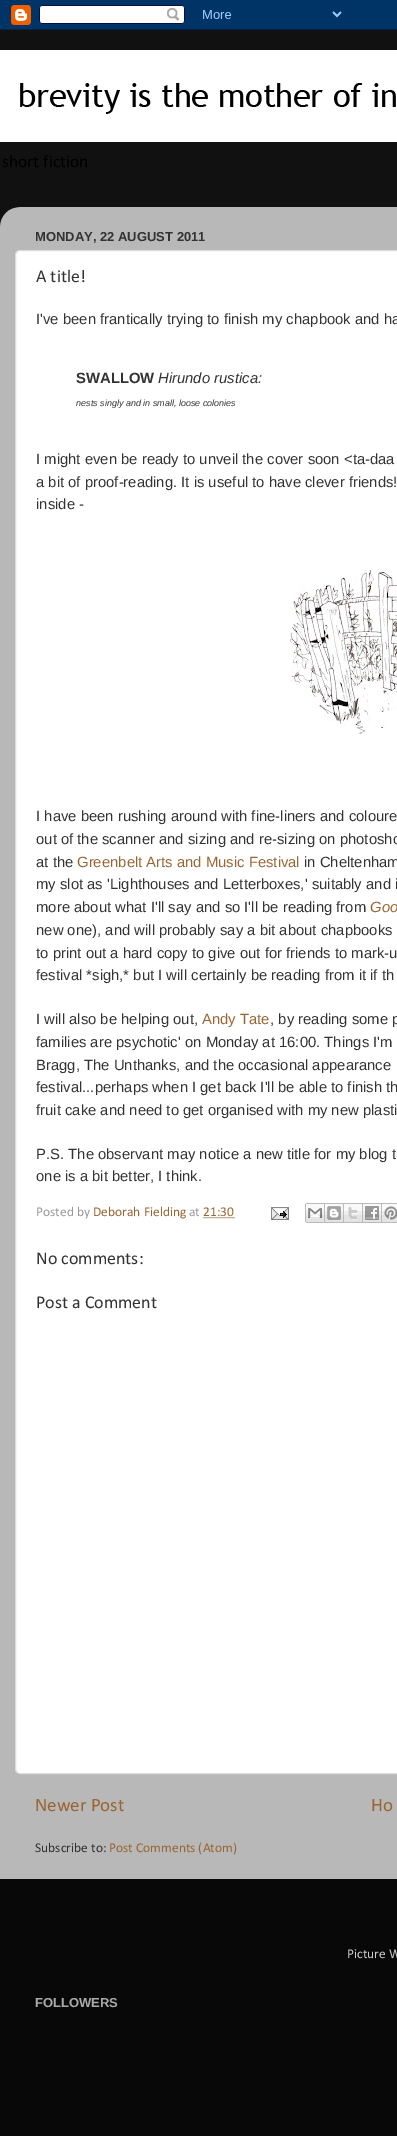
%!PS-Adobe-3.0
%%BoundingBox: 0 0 397 2136
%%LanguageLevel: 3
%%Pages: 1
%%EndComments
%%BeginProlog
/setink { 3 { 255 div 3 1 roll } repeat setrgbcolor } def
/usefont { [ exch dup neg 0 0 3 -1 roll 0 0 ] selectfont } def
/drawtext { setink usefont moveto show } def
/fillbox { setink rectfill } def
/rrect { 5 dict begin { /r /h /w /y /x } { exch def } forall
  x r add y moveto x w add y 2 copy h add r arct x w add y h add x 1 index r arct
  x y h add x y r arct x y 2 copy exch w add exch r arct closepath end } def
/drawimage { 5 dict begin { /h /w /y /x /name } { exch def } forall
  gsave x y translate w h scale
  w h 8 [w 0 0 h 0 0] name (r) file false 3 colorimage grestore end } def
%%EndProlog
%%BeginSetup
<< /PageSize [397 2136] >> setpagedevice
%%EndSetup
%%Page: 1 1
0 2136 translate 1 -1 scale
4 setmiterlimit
0 0 397 2136 17 17 17 fillbox
(assets/img1.rgb) 0 0 397 30 drawimage
(assets/img2.rgb) 0 50 397 92 drawimage
(short fiction) 2 167 /Calibri-Regular 17.5 0 0 0 drawtext
(assets/img3.rgb) 0 207 397 1672 drawimage
(MONDAY, 22 AUGUST 2011) 35 241 /LiberationSans-Bold 13 51 51 51 drawtext
255 255 255 setink
15.5 250.5 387 1523 4.5 rrect gsave fill grestore
221 221 221 setink
stroke
(A title!) 36 282 /Calibri-Regular 18 51 51 51 drawtext
(I've been frantically trying to finish my chapbook and ha) 36 324 /LiberationSans-Regular 14.85 51 51 51 drawtext
(SWALLOW) 76 383 /LiberationSans-Bold 14.85 51 51 51 drawtext
(Hirundo rustica:) 158 383 /LiberationSans-Italic 14.85 51 51 51 drawtext
(nests singly and in small, loose colonies) 76 406 /LiberationSans-Italic 9 51 51 51 drawtext
(I might even be ready to unveil the cover soon <ta-daa) 36 464 /LiberationSans-Regular 14.85 51 51 51 drawtext
(a bit of proof-reading. It is useful to have clever friends!) 36 487 /LiberationSans-Regular 14.85 51 51 51 drawtext
(inside -) 36 509 /LiberationSans-Regular 14.85 51 51 51 drawtext
(assets/img4.rgb) 290 569 107 165 drawimage
(I have been rushing around with fine-liners and coloure) 36 821 /LiberationSans-Regular 14.85 51 51 51 drawtext
(out of the scanner and sizing and re-sizing on photosho) 36 844 /LiberationSans-Regular 14.85 51 51 51 drawtext
(at the) 36 867 /LiberationSans-Regular 14.85 51 51 51 drawtext
(Greenbelt Arts and Music Festival) 77 867 /LiberationSans-Regular 14.85 153 102 51 drawtext
(in Cheltenham) 304 867 /LiberationSans-Regular 14.85 51 51 51 drawtext
(my slot as 'Lighthouses and Letterboxes,' suitably and i) 36 889 /LiberationSans-Regular 14.85 51 51 51 drawtext
(more about what I'll say and so I'll be reading from) 36 912 /LiberationSans-Regular 14.85 51 51 51 drawtext
(Goo) 370 912 /LiberationSans-Italic 14.85 153 102 51 drawtext
(new one\), and will probably say a bit about chapbooks) 36 935 /LiberationSans-Regular 14.85 51 51 51 drawtext
(to print out a hard copy to give out for friends to mark-u) 36 958 /LiberationSans-Regular 14.85 51 51 51 drawtext
(festival *sigh,* but I will certainly be reading from it if th) 36 980 /LiberationSans-Regular 14.85 51 51 51 drawtext
(I will also be helping out,) 36 1024 /LiberationSans-Regular 14.85 51 51 51 drawtext
(Andy Tate) 202 1024 /LiberationSans-Regular 14.85 153 102 51 drawtext
(, by reading some p) 270 1024 /LiberationSans-Regular 14.85 51 51 51 drawtext
(families are psychotic' on Monday at 16:00. Things I'm) 36 1047 /LiberationSans-Regular 14.85 51 51 51 drawtext
(Bragg, The Unthanks, and the occasional appearance) 36 1070 /LiberationSans-Regular 14.85 51 51 51 drawtext
(festival...perhaps when I get back I'll be able to finish th) 36 1092 /LiberationSans-Regular 14.85 51 51 51 drawtext
(fruit cake and need to get organised with my new plasti) 36 1115 /LiberationSans-Regular 14.85 51 51 51 drawtext
(P.S. The observant may notice a new title for my blog t) 36 1159 /LiberationSans-Regular 14.85 51 51 51 drawtext
(one is a bit better, I think.) 36 1181 /LiberationSans-Regular 14.85 51 51 51 drawtext
(Posted by) 36 1216 /Calibri-Regular 13.5 153 153 153 drawtext
(Deborah Fielding) 93 1216 /Calibri-Regular 13.5 153 102 51 drawtext
(at) 189 1216 /Calibri-Regular 13.5 153 153 153 drawtext
(21:30) 203 1216 /Calibri-Regular 13.5 153 102 51 drawtext
[1 1] 0 setdash
203.5 1217.5 moveto 234.5 1217.5 lineto stroke
(assets/img5.rgb) 271 1207 18 13 drawimage
(assets/img6.rgb) 305 1203 20 20 drawimage
(assets/img7.rgb) 325 1203 19 20 drawimage
(assets/img8.rgb) 344 1203 19 20 drawimage
(assets/img9.rgb) 363 1203 19 20 drawimage
(assets/img10.rgb) 382 1203 15 20 drawimage
(No comments:) 36 1264 /Calibri-Regular 18 51 51 51 drawtext
(Post a Comment) 36 1308 /Calibri-Regular 18 51 51 51 drawtext
(Newer Post) 35 1811 /Calibri-Regular 19 153 102 51 drawtext
(Ho) 371 1811 /Calibri-Regular 19 153 102 51 drawtext
(Subscribe to:) 35 1852 /Calibri-Regular 13.5 51 51 51 drawtext
(Post Comments \(Atom\)) 109 1852 /Calibri-Regular 13.5 153 102 51 drawtext
0 1879 397 257 8 8 8 fillbox
(Picture W) 347 1958 /Calibri-Regular 13.5 204 204 204 drawtext
(FOLLOWERS) 35 2007 /LiberationSans-Bold 13 170 170 170 drawtext
showpage
%%EOF
